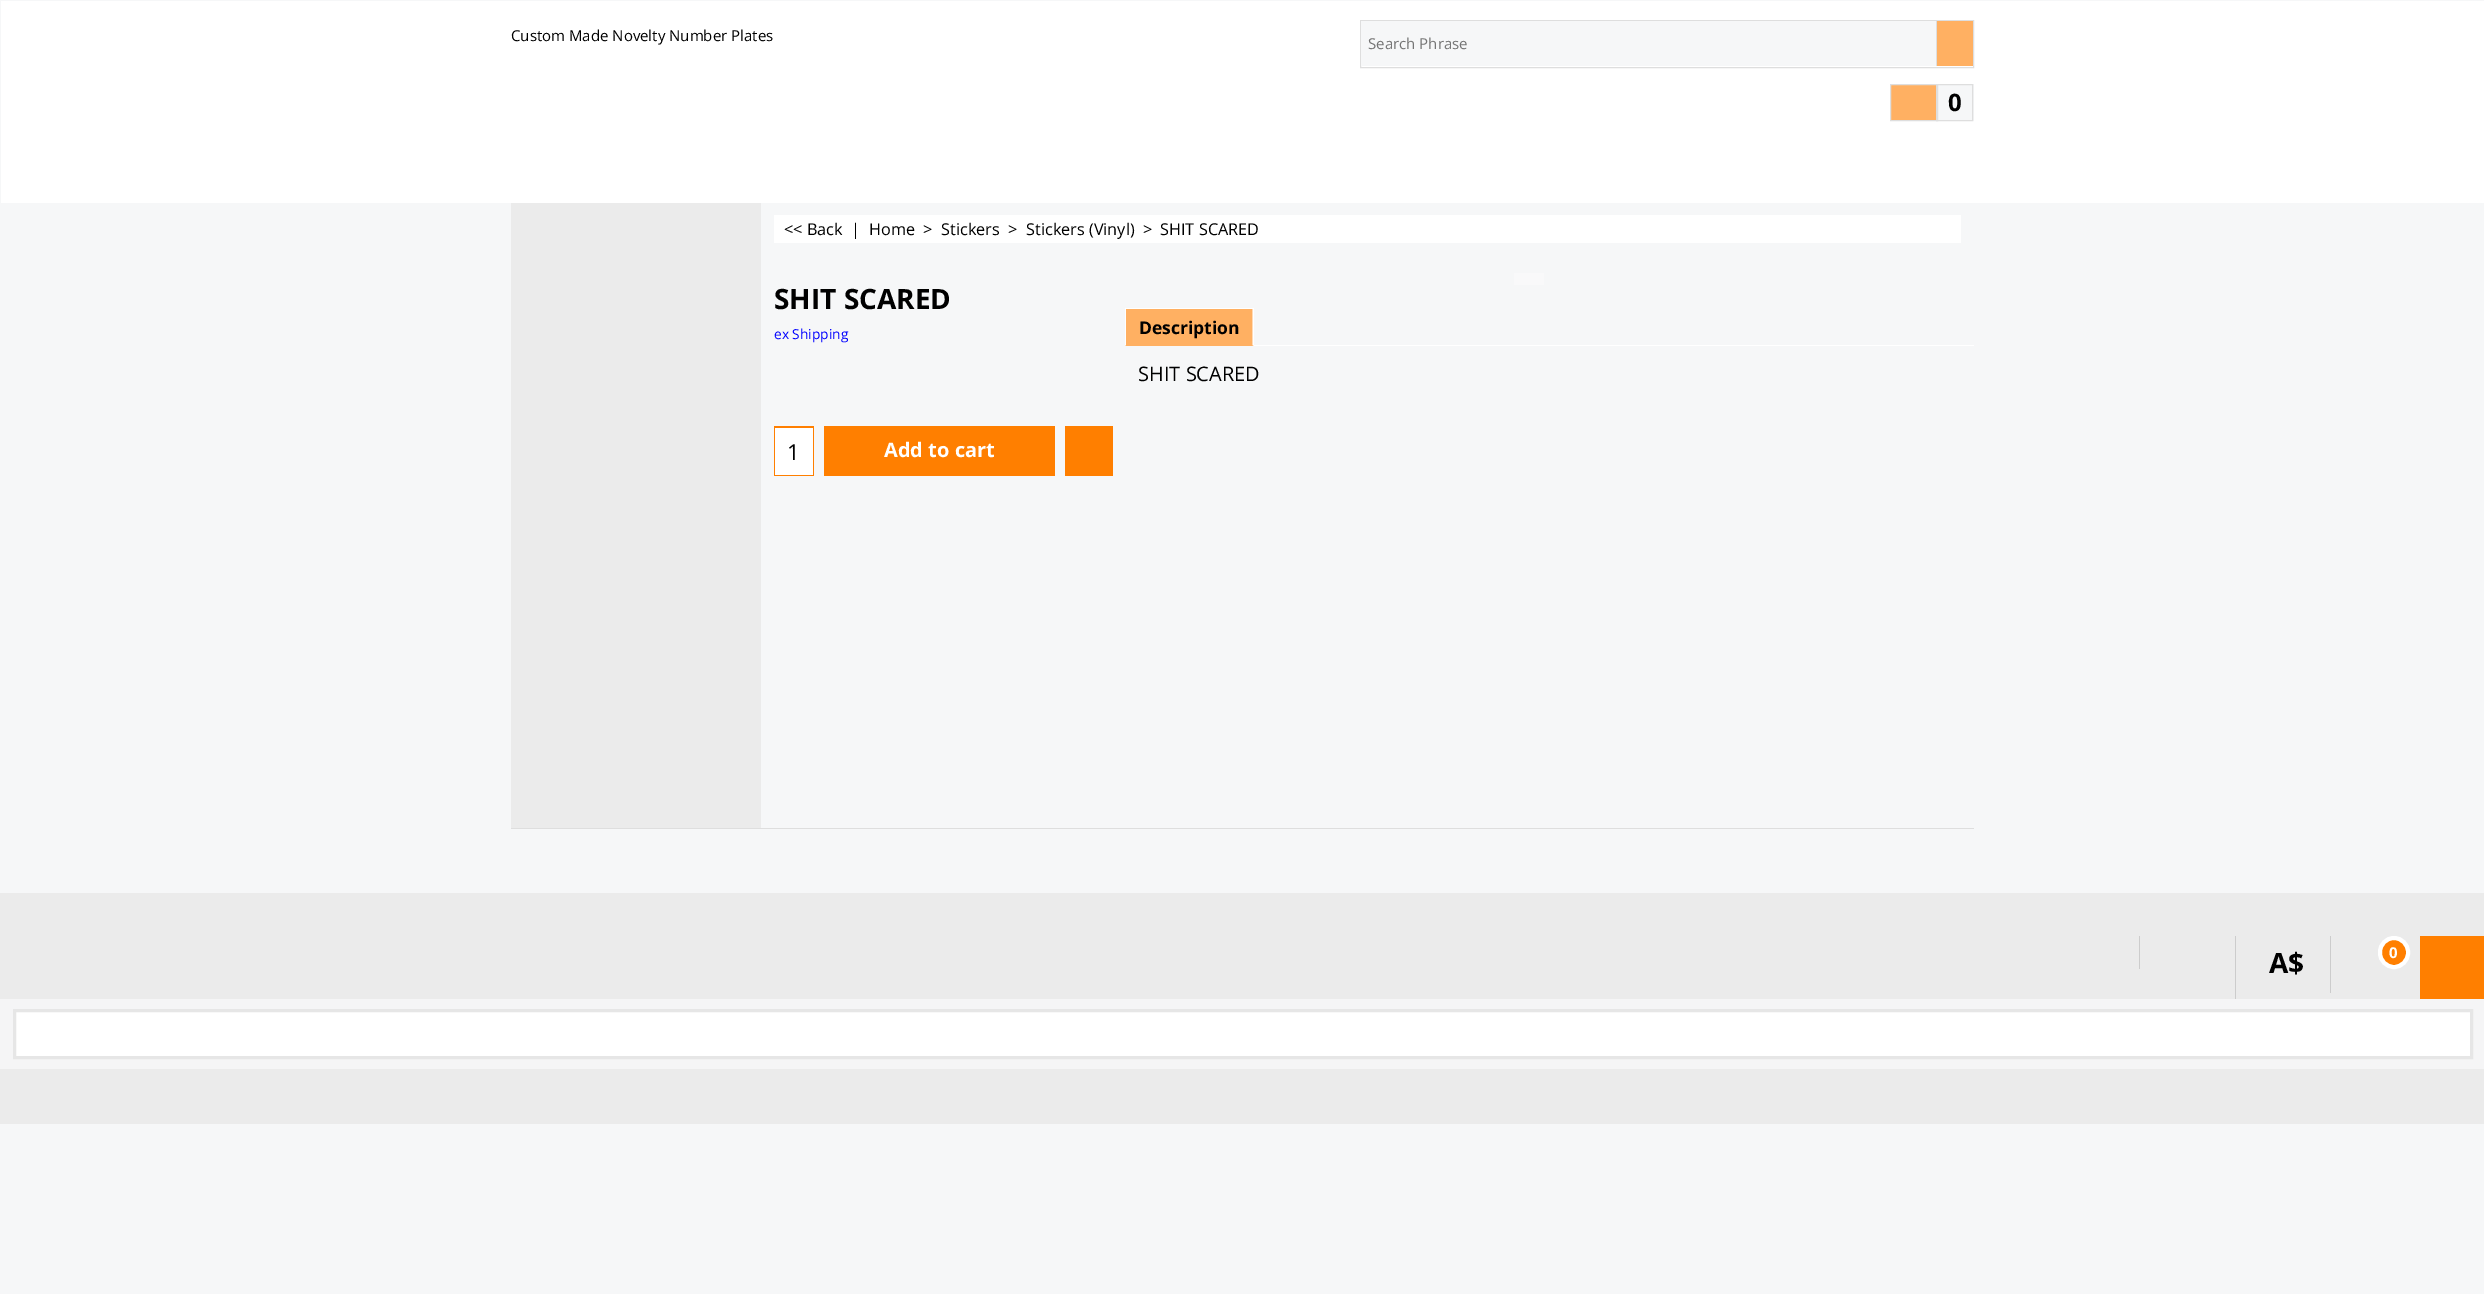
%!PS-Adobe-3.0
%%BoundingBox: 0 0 2484 1294
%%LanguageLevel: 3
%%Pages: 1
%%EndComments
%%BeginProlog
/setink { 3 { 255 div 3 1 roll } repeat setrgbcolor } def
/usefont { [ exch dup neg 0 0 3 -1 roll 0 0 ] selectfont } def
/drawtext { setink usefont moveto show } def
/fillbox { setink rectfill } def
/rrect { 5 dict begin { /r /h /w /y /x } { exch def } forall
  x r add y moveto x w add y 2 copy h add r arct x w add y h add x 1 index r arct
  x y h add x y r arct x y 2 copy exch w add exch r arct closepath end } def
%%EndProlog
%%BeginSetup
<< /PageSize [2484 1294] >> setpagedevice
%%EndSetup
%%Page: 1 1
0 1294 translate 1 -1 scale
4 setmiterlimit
0 0 2484 1294 246 247 248 fillbox
1 1 2483 202 255 255 255 fillbox
(Custom Made Novelty Number Plates) 511 41 /OpenSans-Regular 15 0 0 0 drawtext
222 222 222 setink
1360.5 20.5 613 47 rectstroke
1361 21 575 45 246 247 248 fillbox
(Search Phrase) 1368 49 /OpenSans-Regular 15 117 117 117 drawtext
1937 21 36 45 255 176 98 fillbox
1936 21 1 45 222 222 222 fillbox
1938 84 36 37 246 247 248 fillbox
1891 85 45 35 255 176 98 fillbox
222 222 222 setink
1890.5 84.5 47 36 rectstroke
1936.5 84.5 36 36 rectstroke
(0) 1948 111 /OpenSans-Bold 24 0 0 0 drawtext
511 203 250 625 235 235 235 fillbox
774 215 1187 28 255 255 255 fillbox
(<< Back) 784 235 /OpenSans-Regular 16.25 0 0 0 drawtext
(|) 851 235 /OpenSans-Regular 16.25 0 0 0 drawtext
(Home) 869 235 /OpenSans-Regular 16.25 0 0 0 drawtext
(>) 923 235 /OpenSans-Regular 16.25 0 0 0 drawtext
(Stickers) 941 235 /OpenSans-Regular 16.25 0 0 0 drawtext
(>) 1008 235 /OpenSans-Regular 16.25 0 0 0 drawtext
(Stickers \(Vinyl\)) 1026 235 /OpenSans-Regular 16.25 0 0 0 drawtext
(>) 1143 235 /OpenSans-Regular 16.25 0 0 0 drawtext
(SHIT SCARED) 1160 235 /OpenSans-Regular 16.25 0 0 0 drawtext
1514 273 30 12 249 249 250 fillbox
(SHIT SCARED) 774 309 /OpenSans-Bold 28 0 0 0 drawtext
(ex Shipping) 774 339 /OpenSans-Regular 13.75 0 0 255 drawtext
774 426 40 50 255 127 0 fillbox
775 428 38 47 255 255 255 fillbox
(1) 787 460 /OpenSans-Regular 22 0 0 0 drawtext
824 426 231 50 255 127 0 fillbox
(Add to cart) 884 457 /OpenSans-Bold 20 255 255 255 drawtext
1065 426 48 50 255 127 0 fillbox
1125 309 129 37 255 176 98 fillbox
1125 308 129 1 255 255 255 fillbox
1254 307.5 moveto 1254 346 lineto 1252.5 345 lineto 1252.5 309 lineto closepath fill
1125 346 moveto 1125 307.5 lineto 1126 309 lineto 1126 345 lineto closepath fill
(Description) 1139 334 /OpenSans-Bold 17.5 0 0 0 drawtext
1254 345 720 1 255 255 255 fillbox
(SHIT SCARED) 1138 381 /OpenSans-Regular 20 0 0 0 drawtext
511 828 1463 1 222 222 222 fillbox
0 893 2484 231 235 235 235 fillbox
2139 936 1 33 204 204 204 fillbox
2235 936 1 67 204 204 204 fillbox
2330 936 1 57 204 204 204 fillbox
(A$) 2269 973 /OpenSans-Bold 28 0 0 0 drawtext
255 127 0 setink
2380 938 28 29 14 rrect gsave fill grestore
255 255 255 setink
4 setlinewidth
stroke
(0) 2389 958 /OpenSans-Bold 15 255 255 255 drawtext
2420 936 64 63 255 127 0 fillbox
0 999 2484 70 245 245 246 fillbox
255 255 255 setink
14.5 1010.5 moveto 2471.5 1010.5 lineto 2471.5 1057.5 lineto 14.5 1057.5 lineto closepath gsave fill grestore
230 230 230 setink
3 setlinewidth
stroke
showpage
%%EOF
